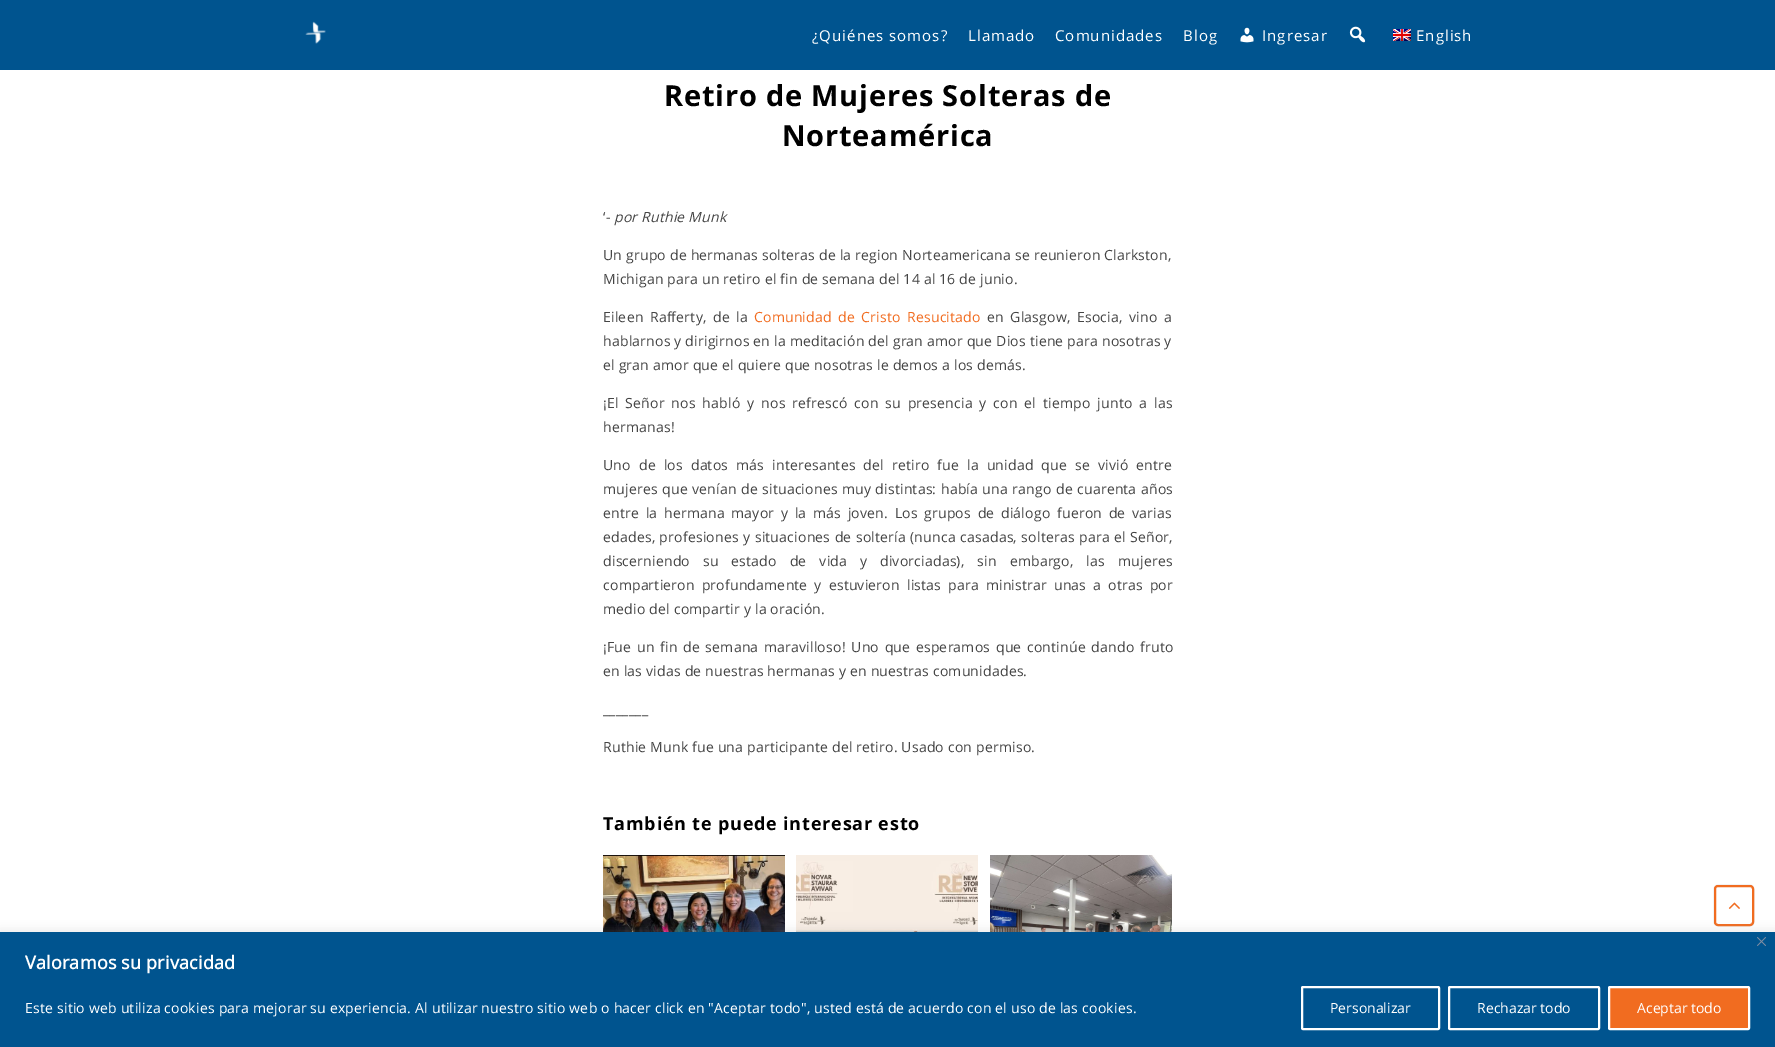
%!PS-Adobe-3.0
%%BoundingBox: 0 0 1775 1047
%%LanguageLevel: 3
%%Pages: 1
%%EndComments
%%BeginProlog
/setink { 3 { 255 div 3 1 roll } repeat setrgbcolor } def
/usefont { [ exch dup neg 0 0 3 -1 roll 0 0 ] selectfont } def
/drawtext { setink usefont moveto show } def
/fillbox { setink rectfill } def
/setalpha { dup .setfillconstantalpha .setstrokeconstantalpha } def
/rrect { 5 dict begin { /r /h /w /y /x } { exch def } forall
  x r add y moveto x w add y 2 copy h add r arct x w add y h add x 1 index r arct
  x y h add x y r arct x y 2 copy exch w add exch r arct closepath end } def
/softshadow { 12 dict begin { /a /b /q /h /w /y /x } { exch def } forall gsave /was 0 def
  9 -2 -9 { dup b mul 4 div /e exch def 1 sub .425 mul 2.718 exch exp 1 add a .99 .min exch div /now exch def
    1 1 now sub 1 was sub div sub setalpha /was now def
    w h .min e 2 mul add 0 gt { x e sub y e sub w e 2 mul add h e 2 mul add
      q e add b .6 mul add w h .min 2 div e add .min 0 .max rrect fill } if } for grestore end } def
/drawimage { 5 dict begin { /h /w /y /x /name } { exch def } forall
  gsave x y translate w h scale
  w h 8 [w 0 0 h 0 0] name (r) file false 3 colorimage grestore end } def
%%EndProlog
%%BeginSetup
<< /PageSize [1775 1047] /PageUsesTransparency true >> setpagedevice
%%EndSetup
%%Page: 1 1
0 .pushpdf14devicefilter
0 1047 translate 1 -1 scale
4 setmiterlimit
0 0 1775 1047 255 255 255 fillbox
0 0 1775 70 0 84 143 fillbox
(assets/img1.rgb) 305 21 21 23 drawimage
/OpenSans-Regular 15 usefont
255 255 255 setink
812 41 moveto 1 0 (¿Quiénes somos?) ashow
968 41 moveto 1 0 (Llamado) ashow
1055 41 moveto 1 0 (Comunidades) ashow
1183 41 moveto 1 0 (Blog) ashow
(assets/img2.rgb) 1240 27 14 16 drawimage
1262 41 moveto 1 0 (Ingresar) ashow
(assets/img3.rgb) 1349 26 17 17 drawimage
(assets/img4.rgb) 1393 29 18 12 drawimage
1416 41 moveto 1 0 (English) ashow
/OpenSans-Bold 29 usefont
0 0 0 setink
664 106 moveto 0.8 0 (Retiro de Mujeres Solteras de) ashow
782 146 moveto 0.8 0 (Norteamérica) ashow
/OpenSans-Regular 14 usefont
69 69 69 setink
603 222 moveto 0.2 0 (‘-) ashow
/OpenSans-Italic 14 usefont
614 222 moveto 0.2 0 (por Ruthie Munk) ashow
/OpenSans-Regular 14 usefont
603 260 moveto 0.2 0 (Un grupo de hermanas solteras de la region Norteamericana se reunieron Clarkston,) ashow
603 284 moveto 0.2 0 (Michigan para un retiro el fin de semana del 14 al 16 de junio.) ashow
603 322 moveto 2.5 0 32 0.2 0 (Eileen Rafferty, de la) awidthshow
241 108 32 setink
754 322 moveto 2.5 0 32 0.2 0 (Comunidad de Cristo Resucitado) awidthshow
69 69 69 setink
987 322 moveto 2.5 0 32 0.2 0 (en Glasgow, Esocia, vino a) awidthshow
603 346 moveto 0.2 0 (hablarnos y dirigirnos en la meditación del gran amor que Dios tiene para nosotras y) ashow
603 370 moveto 0.2 0 (el gran amor que el quiere que nosotras le demos a los demás.) ashow
603 408 moveto 2.9 0 32 0.2 0 (¡El Señor nos habló y nos refrescó con su presencia y con el tiempo junto a las) awidthshow
603 432 moveto 0.2 0 (hermanas!) ashow
603 470 moveto 4.1 0 32 0.2 0 (Uno de los datos más interesantes del retiro fue la unidad que se vivió entre) awidthshow
603 494 moveto 0.5 0 32 0.2 0 (mujeres que venían de situaciones muy distintas: había una rango de cuarenta años) awidthshow
603 518 moveto 2.75 0 32 0.2 0 (entre la hermana mayor y la más joven. Los grupos de diálogo fueron de varias) awidthshow
603 542 moveto 0.5 0 32 0.2 0 (edades, profesiones y situaciones de soltería \(nunca casadas, solteras para el Señor,) awidthshow
603 566 moveto 9 0 32 0.2 0 (discerniendo su estado de vida y divorciadas\), sin embargo, las mujeres) awidthshow
603 590 moveto 3.1 0 32 0.2 0 (compartieron profundamente y estuvieron listas para ministrar unas a otras por) awidthshow
603 614 moveto 0.2 0 (medio del compartir y la oración.) ashow
603 652 moveto 1.75 0 32 0.2 0 (¡Fue un fin de semana maravilloso! Uno que esperamos que continúe dando fruto) awidthshow
603 676 moveto 0.2 0 (en las vidas de nuestras hermanas y en nuestras comunidades.) ashow
603 714 moveto 0.2 0 (_______) ashow
603 752 moveto 0.2 0 (Ruthie Munk fue una participante del retiro. Usado con permiso.) ashow
/OpenSans-Bold 18 usefont
0 0 0 setink
603 830 moveto 0.8 0 (También te puede interesar esto) ashow
(assets/img5.rgb) 603 855 182 77 drawimage
(assets/img6.rgb) 796 855 182 77 drawimage
(assets/img7.rgb) 990 855 182 77 drawimage
1714 885 40 41 4 0.5 0.18 softshadow
255 255 255 setink
1715 886 38 39 3 rrect gsave fill grestore
241 108 32 setink
2 setlinewidth
stroke
(assets/img8.rgb) 1728 902 12 7 drawimage
172 171 171 setink
0 931 1775 115 0 5 0.3 softshadow
0 932 1775 115 0 84 143 fillbox
(assets/img9.rgb) 1757 937 9 9 drawimage
/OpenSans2-Bold 18 usefont
255 255 255 setink
25 969 moveto 0.2 0 (Valoramos su privacidad) ashow
/OpenSans-Regular 14 usefont
25 1013 moveto 0.2 0 (Este sitio web utiliza cookies para mejorar su experiencia. Al utilizar nuestro sitio web o hacer click en "Aceptar todo", usted está de acuerdo con el uso de las cookies.) ashow
1302 987 137 42 1 rrect stroke
(Personalizar) 1330 1013 /OpenSans-Regular 14 255 255 255 drawtext
1449 987 150 42 1 rrect stroke
(Rechazar todo) 1477 1013 /OpenSans-Regular 14 255 255 255 drawtext
241 108 32 setink
1609 987 140 42 1 rrect gsave fill grestore
255 255 255 setink
stroke
(Aceptar todo) 1637 1013 /OpenSans-Regular 14 255 255 255 drawtext
.poppdf14devicefilter showpage
%%EOF
